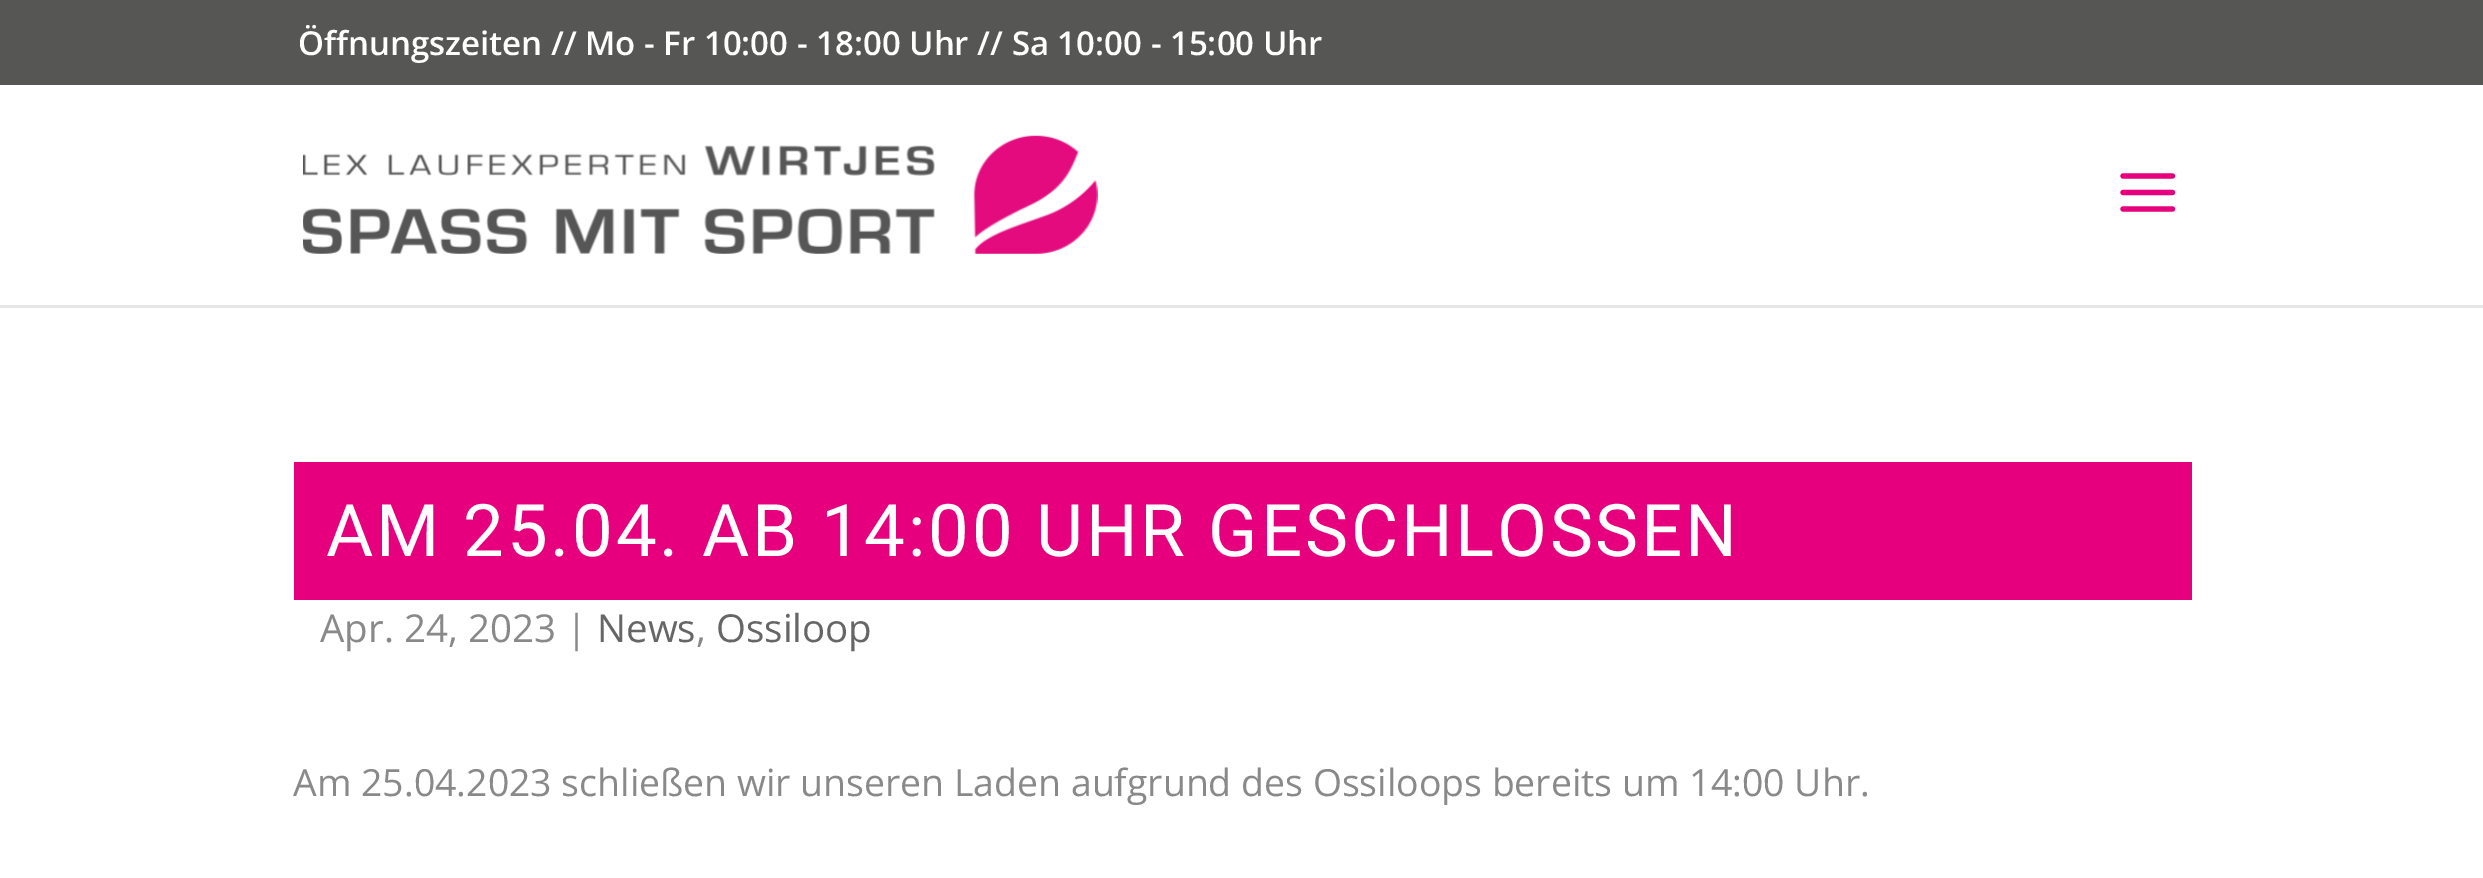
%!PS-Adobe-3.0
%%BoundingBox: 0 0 2483 878
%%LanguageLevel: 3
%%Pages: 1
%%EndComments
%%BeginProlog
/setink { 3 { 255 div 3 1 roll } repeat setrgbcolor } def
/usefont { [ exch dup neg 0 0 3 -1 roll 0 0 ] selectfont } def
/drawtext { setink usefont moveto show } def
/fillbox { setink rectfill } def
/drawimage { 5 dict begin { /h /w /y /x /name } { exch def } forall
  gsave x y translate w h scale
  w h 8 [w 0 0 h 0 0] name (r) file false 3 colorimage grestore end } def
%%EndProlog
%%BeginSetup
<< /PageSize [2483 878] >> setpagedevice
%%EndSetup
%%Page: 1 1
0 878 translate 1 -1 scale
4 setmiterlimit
0 0 2483 878 255 255 255 fillbox
0 0 2483 85 86 86 85 fillbox
(Öffnungszeiten // Mo - Fr 10:00 - 18:00 Uhr // Sa 10:00 - 15:00 Uhr) 298 55 /OpenSans-SemiBold 33 255 255 255 drawtext
0 305 2483 3 230 230 230 fillbox
(assets/img1.rgb) 303 135 795 119 drawimage
(assets/img2.rgb) 2120 173 56 39 drawimage
294 462 1898 138 230 0 126 fillbox
/Roboto-Regular 72.6 usefont
255 255 255 setink
326 556 moveto 2.75 0 (AM 25.04. AB 14:00 UHR GESCHLOSSEN) ashow
(Apr. 24, 2023 |) 320 642 /OpenSans-Regular 38.5 137 137 137 drawtext
(News) 597 642 /OpenSans-Regular 38.5 102 102 102 drawtext
(,) 696 642 /OpenSans-Regular 38.5 137 137 137 drawtext
(Ossiloop) 716 642 /OpenSans-Regular 38.5 102 102 102 drawtext
(Am 25.04.2023 schließen wir unseren Laden aufgrund des Ossiloops bereits um 14:00 Uhr.) 293 796 /OpenSans-Regular 37.4 137 137 137 drawtext
showpage
%%EOF
